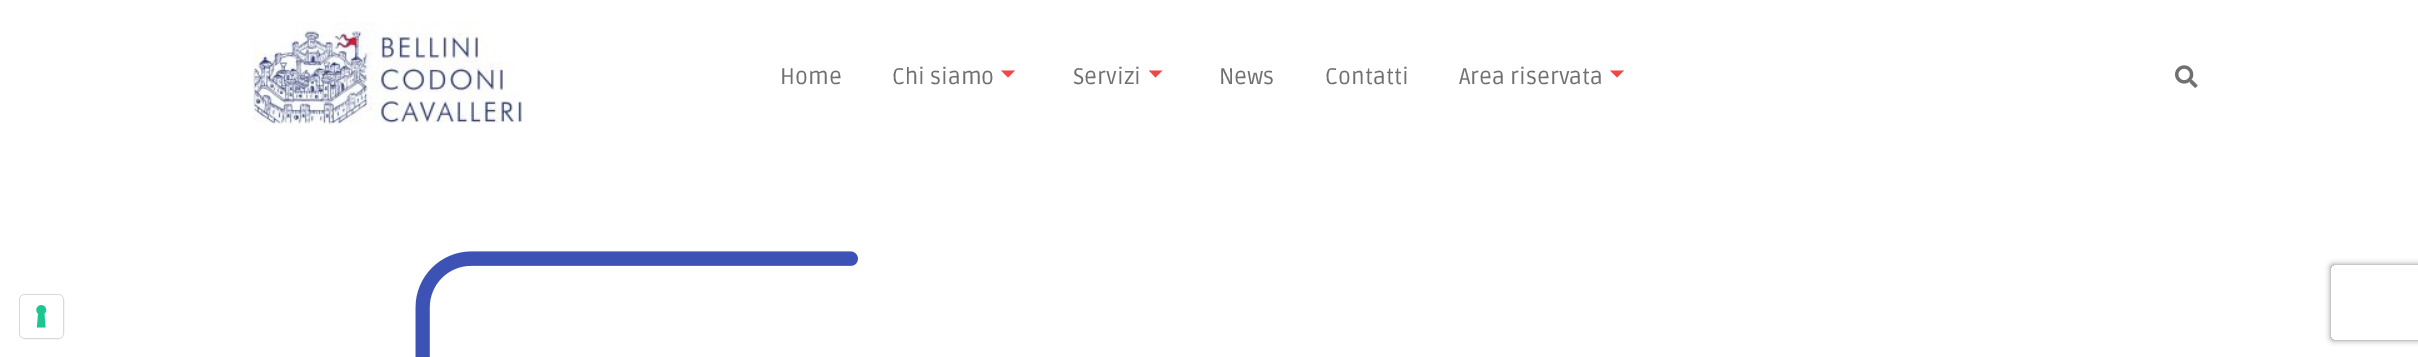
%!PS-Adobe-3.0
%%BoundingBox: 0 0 2418 357
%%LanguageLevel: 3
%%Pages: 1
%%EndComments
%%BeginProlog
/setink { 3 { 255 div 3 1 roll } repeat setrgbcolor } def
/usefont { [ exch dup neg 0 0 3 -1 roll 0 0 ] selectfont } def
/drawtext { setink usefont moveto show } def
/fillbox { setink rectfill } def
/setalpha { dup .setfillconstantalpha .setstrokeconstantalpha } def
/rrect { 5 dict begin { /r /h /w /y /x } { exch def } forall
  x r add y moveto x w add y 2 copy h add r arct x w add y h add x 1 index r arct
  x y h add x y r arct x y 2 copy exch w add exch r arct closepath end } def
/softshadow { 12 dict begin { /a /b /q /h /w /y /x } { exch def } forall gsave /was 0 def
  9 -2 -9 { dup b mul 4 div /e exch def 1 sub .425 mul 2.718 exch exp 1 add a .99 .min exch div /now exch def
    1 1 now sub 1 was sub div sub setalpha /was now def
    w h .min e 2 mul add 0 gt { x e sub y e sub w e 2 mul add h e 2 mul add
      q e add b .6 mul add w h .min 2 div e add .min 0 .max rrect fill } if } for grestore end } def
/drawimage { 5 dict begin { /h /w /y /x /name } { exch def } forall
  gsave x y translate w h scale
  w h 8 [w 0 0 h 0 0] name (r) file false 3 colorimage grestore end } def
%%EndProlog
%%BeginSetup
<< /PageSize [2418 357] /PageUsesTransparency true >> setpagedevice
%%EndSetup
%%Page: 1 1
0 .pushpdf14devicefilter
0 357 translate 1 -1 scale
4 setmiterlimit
0 0 2418 357 255 255 255 fillbox
(assets/img1.rgb) 252 22 275 103 drawimage
(Home) 780 84 /Ruda-Regular 22.5 112 112 112 drawtext
(Chi siamo) 892 84 /Ruda-Regular 22.5 112 112 112 drawtext
241 70 71 setink
1001 70.5 moveto 1015 70.5 lineto 1008 77.5 lineto closepath fill
(Servizi) 1073 84 /Ruda-Regular 22.5 112 112 112 drawtext
241 70 71 setink
1149 70.5 moveto 1162.5 70.5 lineto 1155.5 77.5 lineto closepath fill
(News) 1219 84 /Ruda-Regular 22.5 112 112 112 drawtext
(Contatti) 1325 84 /Ruda-Regular 22.5 112 112 112 drawtext
(Area riservata) 1459 84 /Ruda-Regular 22.5 112 112 112 drawtext
241 70 71 setink
1610 70.5 moveto 1624 70.5 lineto 1617 77.5 lineto closepath fill
(assets/img2.rgb) 2175 65 23 23 drawimage
217 217 217 setink
19.5 294.5 44 44 5.5 rrect stroke
255 255 255 setink
20 295 43 43 5 rrect fill
(assets/img3.rgb) 36 305 11 23 drawimage
(assets/img4.rgb) 415 251 443 106 drawimage
gsave
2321 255 moveto 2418 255 lineto 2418 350 lineto 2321 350 lineto closepath 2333.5 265 moveto 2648.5 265 lineto 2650 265 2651 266 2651 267.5 curveto 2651 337.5 lineto 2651 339 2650 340 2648.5 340 curveto 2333.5 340 lineto 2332 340 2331 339 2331 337.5 curveto 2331 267.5 lineto 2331 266 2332 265 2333.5 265 curveto closepath eoclip newpath
128 128 128 setink
2331 265 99 75 2.5 3 1 softshadow
grestore
.poppdf14devicefilter showpage
%%EOF
